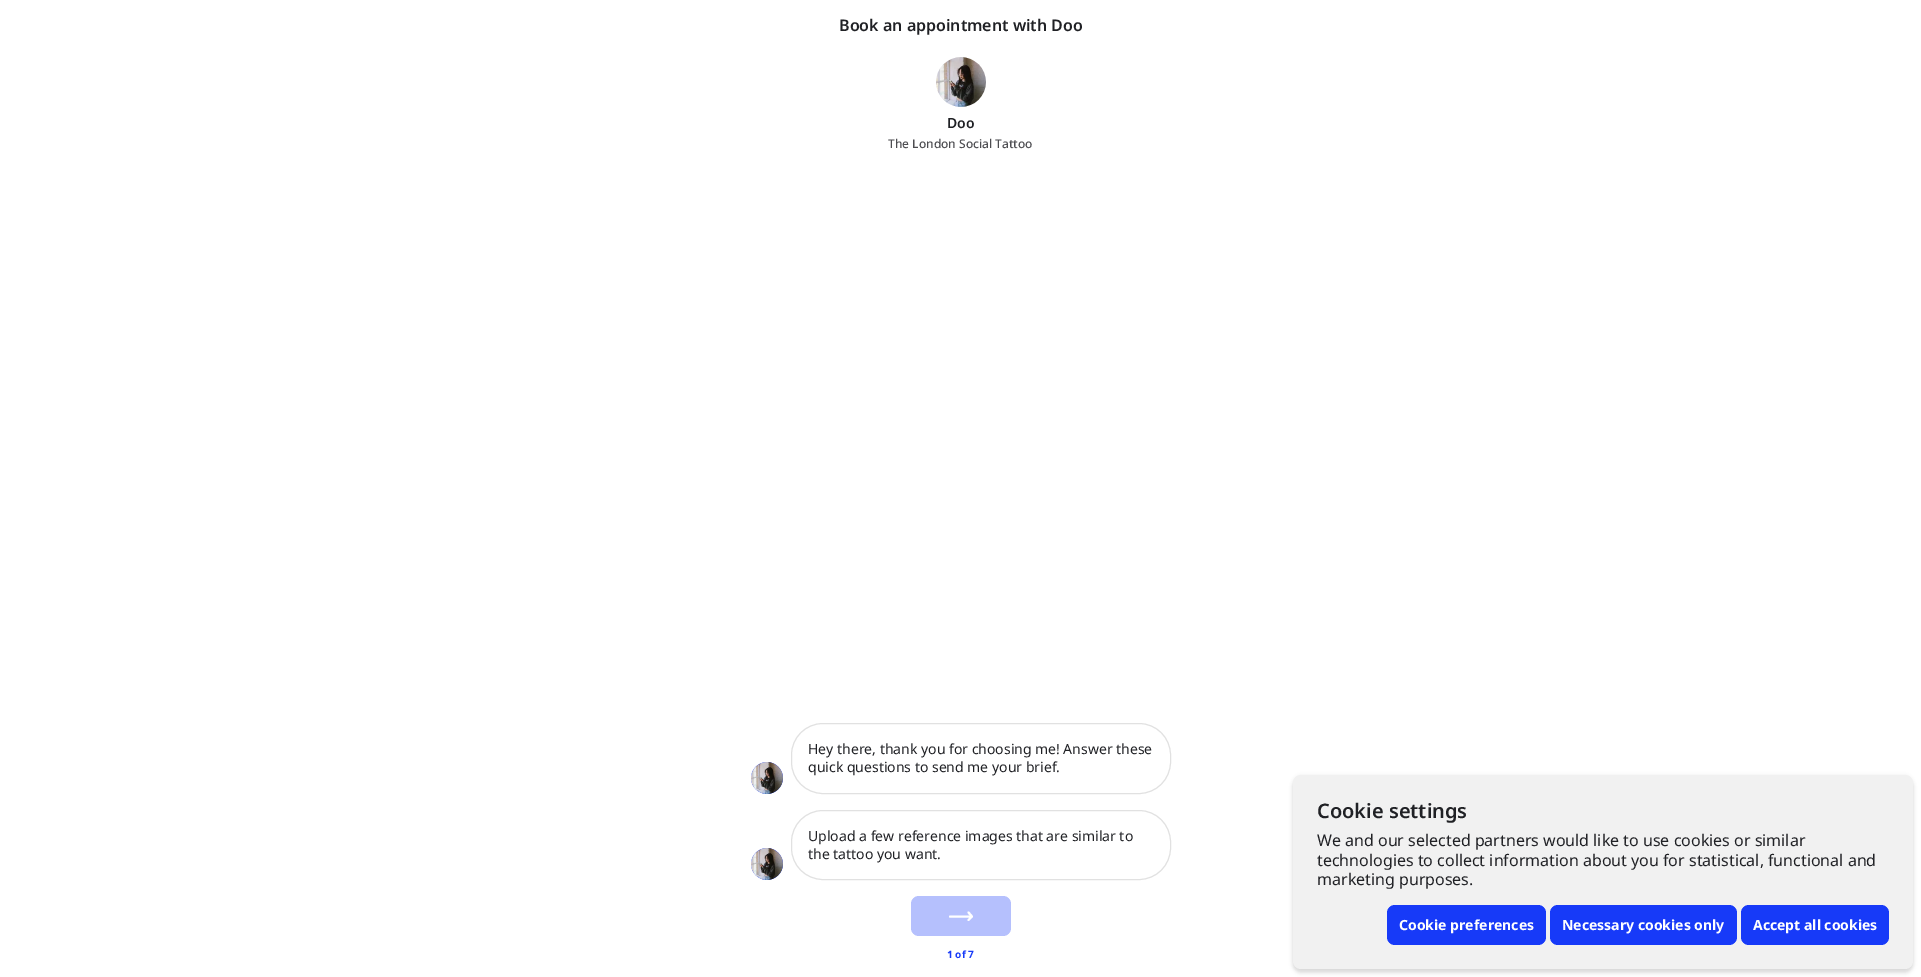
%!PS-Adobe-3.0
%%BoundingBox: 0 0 1921 977
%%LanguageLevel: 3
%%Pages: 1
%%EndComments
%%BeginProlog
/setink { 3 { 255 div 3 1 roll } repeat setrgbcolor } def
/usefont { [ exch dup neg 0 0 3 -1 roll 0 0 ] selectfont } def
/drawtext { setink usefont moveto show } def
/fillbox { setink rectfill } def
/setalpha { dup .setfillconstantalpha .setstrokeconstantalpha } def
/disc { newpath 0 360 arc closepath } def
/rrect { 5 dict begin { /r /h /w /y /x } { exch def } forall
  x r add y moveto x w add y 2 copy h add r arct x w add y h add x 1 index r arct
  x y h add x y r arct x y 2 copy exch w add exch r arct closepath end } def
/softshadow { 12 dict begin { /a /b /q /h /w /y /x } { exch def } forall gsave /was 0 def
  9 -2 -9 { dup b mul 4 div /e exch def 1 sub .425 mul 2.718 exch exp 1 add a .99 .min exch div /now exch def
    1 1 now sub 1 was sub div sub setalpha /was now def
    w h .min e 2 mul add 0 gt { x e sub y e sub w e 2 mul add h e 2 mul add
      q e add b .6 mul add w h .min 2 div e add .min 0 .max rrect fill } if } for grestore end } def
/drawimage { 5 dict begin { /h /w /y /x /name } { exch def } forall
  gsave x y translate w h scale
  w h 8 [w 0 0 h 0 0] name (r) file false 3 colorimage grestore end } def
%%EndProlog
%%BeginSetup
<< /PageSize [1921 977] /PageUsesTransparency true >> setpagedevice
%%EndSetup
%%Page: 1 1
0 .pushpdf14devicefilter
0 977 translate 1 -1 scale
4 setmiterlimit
0 0 1921 977 255 255 255 fillbox
(Book an appointment with Doo) 839 31 /NotoSans-SemiBold 16 32 33 37 drawtext
245 246 247 setink
961 82 25 disc fill
(assets/img1.rgb) 936 57 50 50 drawimage
(Doo) 947 128 /NotoSans-SemiBold 14 32 33 37 drawtext
(The London Social Tattoo) 888 148 /NotoSans-Medium 12 77 77 81 drawtext
23 58 248 setink
767 778 16 disc fill
(assets/img2.rgb) 751 762 32 32 drawimage
225 225 225 setink
791.5 723.5 379 70 31.5 rrect stroke
(Hey there, thank you for choosing me! Answer these) 808 754 /NotoSans-Regular 14 32 33 37 drawtext
(quick questions to send me your brief.) 808 772 /NotoSans-Regular 14 32 33 37 drawtext
23 58 248 setink
767 864 16 disc fill
(assets/img3.rgb) 751 848 32 32 drawimage
225 225 225 setink
791.5 810.5 379 69 31.5 rrect stroke
(Upload a few reference images that are similar to) 808 841 /NotoSans-Regular 14 32 33 37 drawtext
(the tattoo you want.) 808 859 /NotoSans-Regular 14 32 33 37 drawtext
181 192 253 setink
911 896 100 40 8 rrect fill
255 255 255 setink
2 setlinewidth
1 setlinecap
1 setlinejoin
972 916.5 moveto 950 916.5 lineto 968.5 920 moveto 972 916.5 lineto 968.5 912.5 lineto stroke
(1 of 7) 947 958 /NotoSans-Bold 10 23 58 248 drawtext
0 0 0 setink
1293 775 620 194 8 2 0.06 softshadow
1293 779 620 194 8 2 0.12 softshadow
241 241 241 setink
1293 775 620 194 8 rrect fill
(Cookie settings) 1317 818 /NotoSans-SemiBold 20 32 33 37 drawtext
(We and our selected partners would like to use cookies or similar) 1317 846 /NotoSans-Regular 16 32 33 37 drawtext
(technologies to collect information about you for statistical, functional and) 1317 866 /NotoSans-Regular 16 32 33 37 drawtext
(marketing purposes.) 1317 885 /NotoSans-Regular 16 32 33 37 drawtext
23 58 248 setink
1387 905 159 40 8 rrect fill
(Cookie preferences) 1399 930 /NotoSans-Bold 14 255 255 255 drawtext
23 58 248 setink
1550 905 187 40 8 rrect fill
(Necessary cookies only) 1562 930 /NotoSans-Bold 14 255 255 255 drawtext
23 58 248 setink
1741 905 148 40 8 rrect fill
(Accept all cookies) 1753 930 /NotoSans-Bold 14 255 255 255 drawtext
.poppdf14devicefilter showpage
%%EOF
